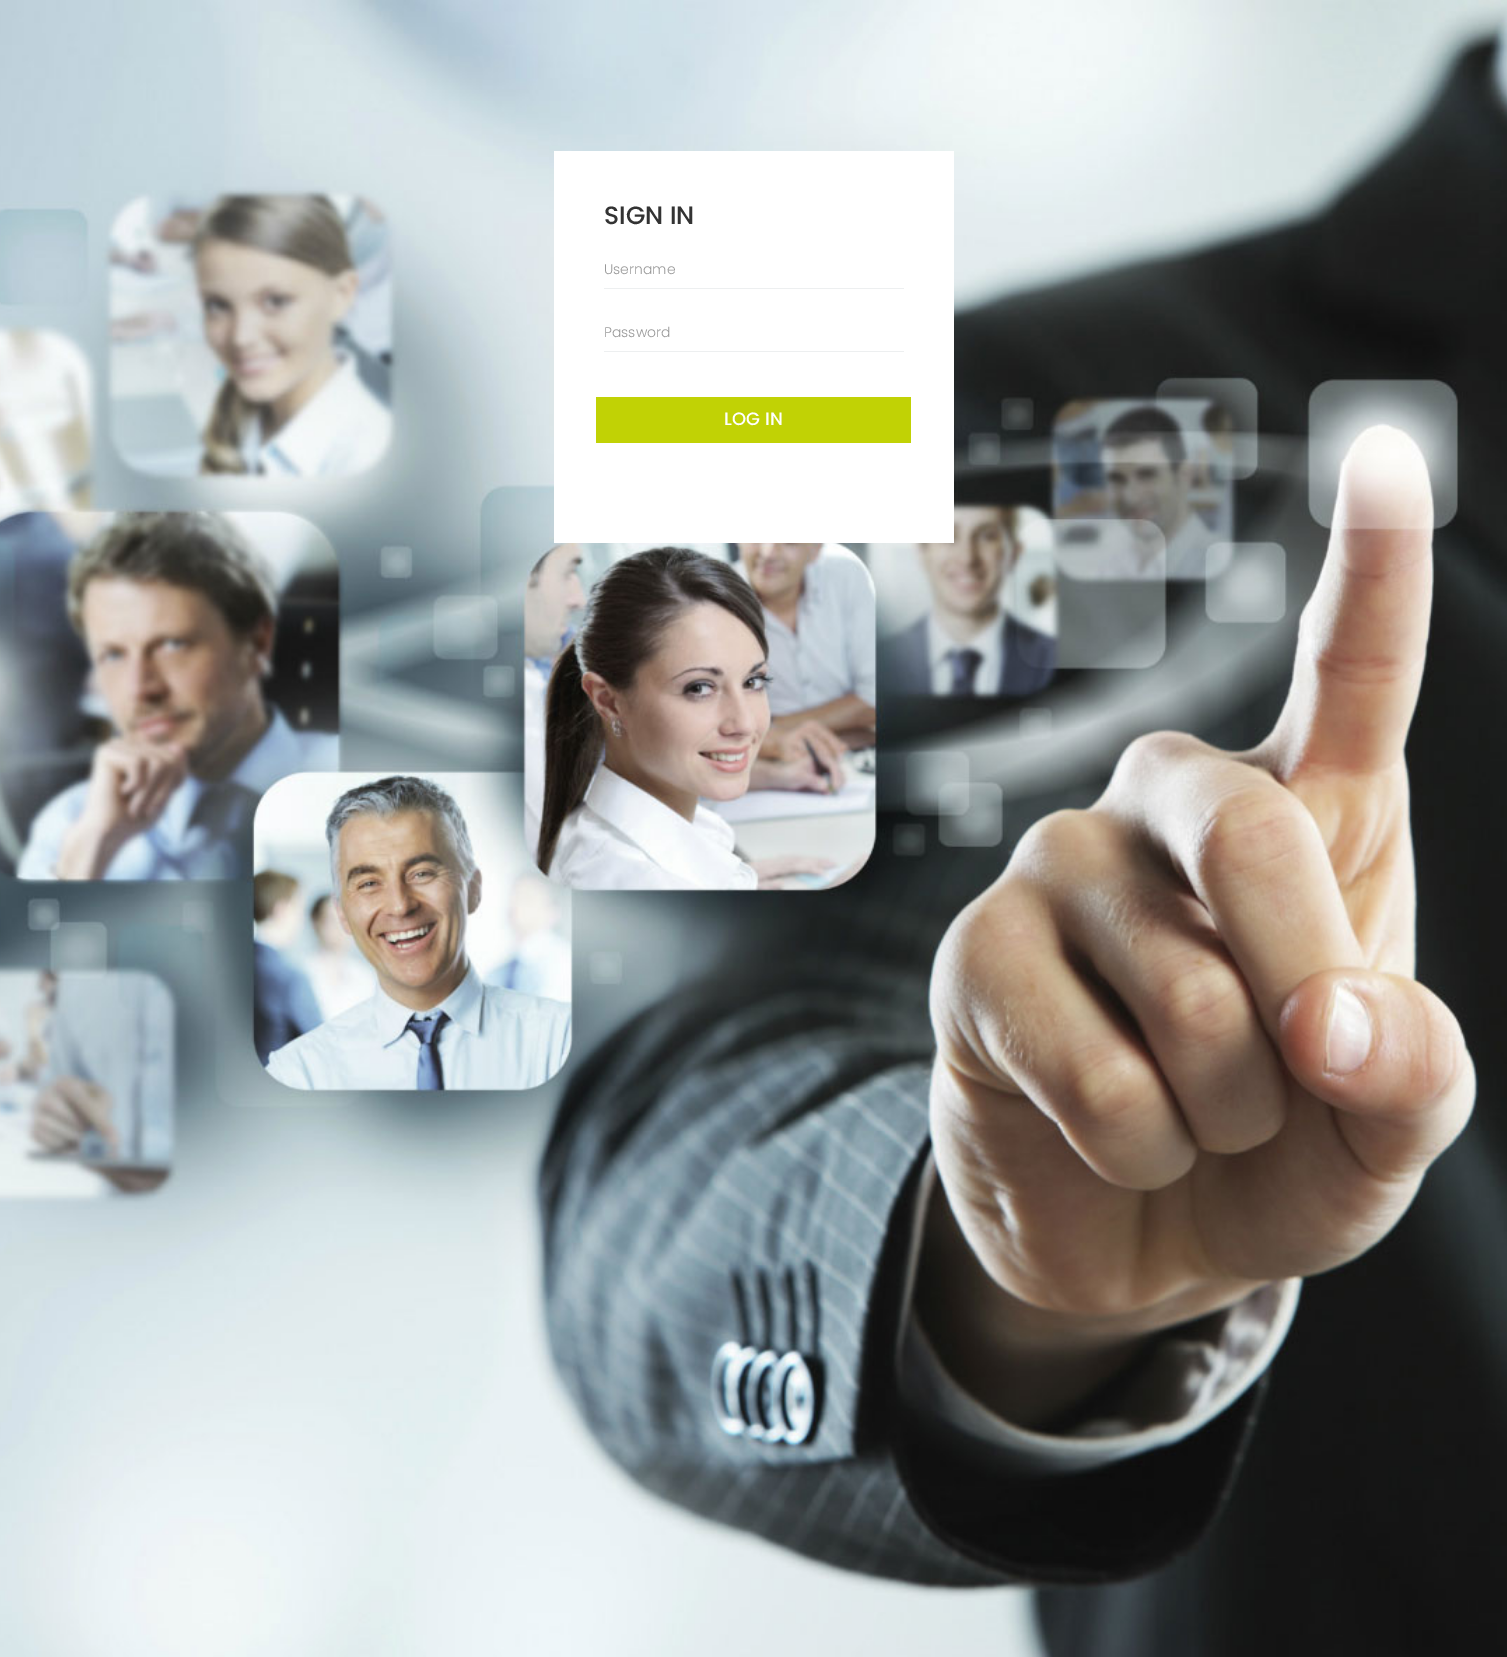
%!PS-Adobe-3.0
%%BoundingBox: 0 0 1507 1657
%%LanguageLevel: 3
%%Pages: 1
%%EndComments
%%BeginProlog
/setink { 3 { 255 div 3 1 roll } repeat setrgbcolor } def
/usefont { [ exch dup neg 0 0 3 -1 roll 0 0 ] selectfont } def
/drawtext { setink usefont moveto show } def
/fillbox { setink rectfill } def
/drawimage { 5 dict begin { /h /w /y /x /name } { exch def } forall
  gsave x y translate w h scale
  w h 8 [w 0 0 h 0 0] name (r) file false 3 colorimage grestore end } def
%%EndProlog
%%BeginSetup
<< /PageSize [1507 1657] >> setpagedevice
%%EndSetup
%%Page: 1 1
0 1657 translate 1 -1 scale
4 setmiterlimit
0 0 1507 1657 255 255 255 fillbox
(assets/img1.rgb) 0 0 1507 1657 drawimage
554 151 400 392 255 255 255 fillbox
(SIGN IN) 604 224 /Poppins-Medium 25 51 51 51 drawtext
604 288 300 1 237 239 240 fillbox
(Username) 604 274 /Poppins-Light 14 153 153 153 drawtext
604 351 300 1 237 239 240 fillbox
(Password) 604 337 /Poppins-Light 14 153 153 153 drawtext
596 397 315 46 193 210 5 fillbox
(LOG IN) 724 425 /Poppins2-Medium 18 255 255 255 drawtext
showpage
%%EOF
